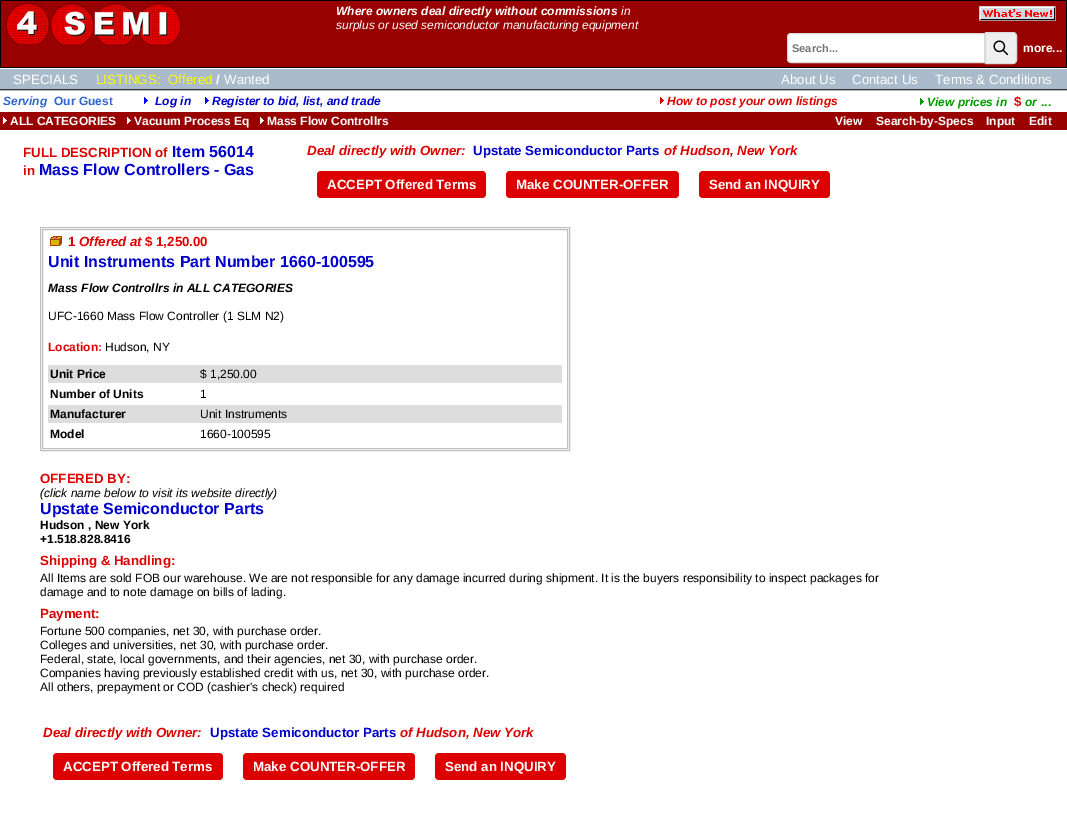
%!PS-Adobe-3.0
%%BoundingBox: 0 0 1067 818
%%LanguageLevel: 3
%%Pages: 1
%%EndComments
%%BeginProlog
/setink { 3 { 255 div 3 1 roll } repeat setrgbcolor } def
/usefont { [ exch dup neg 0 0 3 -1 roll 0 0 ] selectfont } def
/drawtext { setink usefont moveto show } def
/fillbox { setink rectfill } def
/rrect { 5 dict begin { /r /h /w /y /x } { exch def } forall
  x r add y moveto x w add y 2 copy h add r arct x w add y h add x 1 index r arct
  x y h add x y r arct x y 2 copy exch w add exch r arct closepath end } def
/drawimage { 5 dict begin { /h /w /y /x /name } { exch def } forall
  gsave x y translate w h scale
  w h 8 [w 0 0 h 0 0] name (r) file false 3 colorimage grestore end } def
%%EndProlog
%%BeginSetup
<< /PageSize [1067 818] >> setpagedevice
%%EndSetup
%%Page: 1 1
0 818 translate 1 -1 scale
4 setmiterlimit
0 0 1067 818 255 255 255 fillbox
0 0 1067 68 0 0 0 fillbox
1 1 1065 66 153 0 0 fillbox
(assets/img1.rgb) 5 2 177 44 drawimage
(Where owners deal directly without commissions) 336 15 /LiberationSans-BoldItalic 12 255 255 255 drawtext
(in) 621 15 /LiberationSans-Italic 12 255 255 255 drawtext
(surplus or used semiconductor manufacturing equipment) 336 29 /LiberationSans-Italic 12 255 255 255 drawtext
(assets/img2.rgb) 979 6 77 15 drawimage
791 33.5 moveto 984.5 33.5 lineto 984.5 62.5 lineto 791 62.5 lineto 789 62.5 787.5 61 787.5 59 curveto 787.5 37 lineto 787.5 35 789 33.5 791 33.5 curveto closepath gsave fill grestore
218 218 218 setink
stroke
(Search...) 792 52 /LiberationSans-Bold 11 117 117 117 drawtext
239 239 239 setink
985.5 32.5 moveto 1013 32.5 lineto 1015 32.5 1016.5 34 1016.5 36 curveto 1016.5 60 lineto 1016.5 62 1015 63.5 1013 63.5 curveto 985.5 63.5 lineto closepath gsave fill grestore
218 218 218 setink
stroke
(assets/img3.rgb) 993 40 16 16 drawimage
(more...) 1023 52 /LiberationSans-Bold 12 255 255 255 drawtext
0 69 1067 20 170 187 204 fillbox
(SPECIALS) 13 84 /LiberationSans-Regular 13.3 255 255 255 drawtext
(LISTINGS:) 96 84 /LiberationSans-Regular 13.3 255 255 0 drawtext
(Offered) 168 84 /LiberationSans-Regular 13.3 255 255 0 drawtext
(/) 216 84 /LiberationSans-Bold 13.3 255 255 255 drawtext
(Wanted) 224 84 /LiberationSans-Regular 13.3 255 255 255 drawtext
(About Us) 781 84 /LiberationSans-Regular 13.3 255 255 255 drawtext
(Contact Us) 852 84 /LiberationSans-Regular 13.3 255 255 255 drawtext
(Terms & Conditions) 935 84 /LiberationSans-Regular 13.3 255 255 255 drawtext
0 89 1067 1 51 51 51 fillbox
0 90 1067 1 187 187 187 fillbox
(Serving) 3 105 /LiberationSans-BoldItalic 12 51 102 204 drawtext
(Our Guest) 54 105 /LiberationSans-Bold 12 51 102 204 drawtext
(assets/img4.rgb) 144 97 4 7 drawimage
(Log in) 155 105 /LiberationSans-BoldItalic 12 0 0 204 drawtext
(assets/img4.rgb) 205 97 4 7 drawimage
(Register to bid, list, and trade) 212 105 /LiberationSans-BoldItalic 12 0 0 204 drawtext
(assets/img5.rgb) 660 97 4 7 drawimage
(How to post your own listings) 667 105 /LiberationSans-BoldItalic 12 221 0 0 drawtext
(assets/img6.rgb) 920 98 4 7 drawimage
(View prices in) 927 106 /LiberationSans-BoldItalic 12 0 153 0 drawtext
($) 1014 106 /LiberationSans-Bold 13.3 221 0 0 drawtext
(or) 1025 106 /LiberationSans-BoldItalic 12 0 153 0 drawtext
(...) 1041 106 /LiberationSans-Bold 12 0 153 0 drawtext
0 112 1067 18 153 0 0 fillbox
(assets/img7.rgb) 3 117 4 7 drawimage
(ALL CATEGORIES) 10 125 /LiberationSans-Bold 12 255 255 255 drawtext
(assets/img7.rgb) 127 117 4 7 drawimage
(Vacuum Process Eq) 134 125 /LiberationSans-Bold 12 255 255 255 drawtext
(assets/img7.rgb) 260 117 4 7 drawimage
(Mass Flow Controllrs) 267 125 /LiberationSans-Bold 12 255 255 255 drawtext
(View) 835 125 /LiberationSans-Bold 12 255 255 255 drawtext
(Search-by-Specs) 876 125 /LiberationSans-Bold 12 255 255 255 drawtext
(Input) 986 125 /LiberationSans-Bold 12 255 255 255 drawtext
(Edit) 1029 125 /LiberationSans-Bold 12 255 255 255 drawtext
(FULL DESCRIPTION of) 23 157 /LiberationSans-Bold 13.3 221 0 0 drawtext
(Item 56014) 172 157 /LiberationSans-Bold 16 0 0 204 drawtext
(in) 23 175 /LiberationSans-Bold 13.3 221 0 0 drawtext
(Mass Flow Controllers - Gas) 39 175 /LiberationSans-Bold 16 0 0 204 drawtext
(Deal directly with Owner:) 307 155 /LiberationSans-BoldItalic 13.3 221 0 0 drawtext
(Upstate Semiconductor Parts) 473 155 /LiberationSans-Bold 13.3 0 0 204 drawtext
(of Hudson, New York) 664 155 /LiberationSans-BoldItalic 13.3 221 0 0 drawtext
317 171 169 27 4 rrect fill
(ACCEPT Offered Terms) 327 189 /LiberationSans-Bold 13.3 255 255 255 drawtext
221 0 0 setink
506 171 173 27 4 rrect fill
(Make COUNTER-OFFER) 516 189 /LiberationSans-Bold 13.3 255 255 255 drawtext
221 0 0 setink
699 171 131 27 4 rrect fill
(Send an INQUIRY) 709 189 /LiberationSans-Bold 13.3 255 255 255 drawtext
192 192 192 setink
40.5 227.5 529 223 rectstroke
42.5 229.5 525 219 rectstroke
(assets/img8.rgb) 50 236 12 10 drawimage
(1) 68 246 /LiberationSans-Bold 13.3 221 0 0 drawtext
(Offered at) 79 246 /LiberationSans-BoldItalic 13.3 221 0 0 drawtext
($ 1,250.00) 145 246 /LiberationSans-Bold 13.3 221 0 0 drawtext
(Unit Instruments Part Number 1660-100595) 48 267 /LiberationSans-Bold 16 0 0 204 drawtext
(Mass Flow Controllrs in ALL CATEGORIES) 48 292 /LiberationSans-BoldItalic 12 0 0 0 drawtext
(UFC-1660 Mass Flow Controller \(1 SLM N2\)) 48 320 /LiberationSans-Regular 12 0 0 0 drawtext
(Location:) 48 351 /LiberationSans-Bold 12 221 0 0 drawtext
(Hudson, NY) 105 351 /LiberationSans-Regular 12 0 0 0 drawtext
48 365 514 18 221 221 221 fillbox
(Unit Price) 50 378 /LiberationSans-Bold 12 0 0 0 drawtext
($ 1,250.00) 200 378 /LiberationSans-Regular 12 0 0 0 drawtext
(Number of Units) 50 398 /LiberationSans-Bold 12 0 0 0 drawtext
(1) 200 398 /LiberationSans-Regular 12 0 0 0 drawtext
48 405 514 18 221 221 221 fillbox
(Manufacturer) 50 418 /LiberationSans-Bold 12 0 0 0 drawtext
(Unit Instruments) 200 418 /LiberationSans-Regular 12 0 0 0 drawtext
(Model) 50 438 /LiberationSans-Bold 12 0 0 0 drawtext
(1660-100595) 200 438 /LiberationSans-Regular 12 0 0 0 drawtext
(OFFERED BY:) 40 483 /LiberationSans-Bold 13.3 221 0 0 drawtext
(\(click name below to visit its website directly\)) 40 497 /LiberationSans-Italic 12 0 0 0 drawtext
(Upstate Semiconductor Parts) 40 514 /LiberationSans-Bold 16 0 0 204 drawtext
(Hudson , New York) 40 529 /LiberationSans-Bold 12 0 0 0 drawtext
(+1.518.828.8416) 40 543 /LiberationSans-Bold 12 0 0 0 drawtext
(Shipping & Handling:) 40 565 /LiberationSans-Bold 13.3 221 0 0 drawtext
(All Items are sold FOB our warehouse. We are not responsible for any damage incurred during shipment. It is the buyers responsibility to inspect packages for) 40 582 /LiberationSans-Regular 12 0 0 0 drawtext
(damage and to note damage on bills of lading.) 40 596 /LiberationSans-Regular 12 0 0 0 drawtext
(Payment:) 40 618 /LiberationSans-Bold 13.3 221 0 0 drawtext
(Fortune 500 companies, net 30, with purchase order.) 40 635 /LiberationSans-Regular 12 0 0 0 drawtext
(Colleges and universities, net 30, with purchase order.) 40 649 /LiberationSans-Regular 12 0 0 0 drawtext
(Federal, state, local governments, and their agencies, net 30, with purchase order.) 40 663 /LiberationSans-Regular 12 0 0 0 drawtext
(Companies having previously established credit with us, net 30, with purchase order.) 40 677 /LiberationSans-Regular 12 0 0 0 drawtext
(All others, prepayment or COD \(cashier's check\) required) 40 691 /LiberationSans-Regular 12 0 0 0 drawtext
(Deal directly with Owner:) 43 737 /LiberationSans-BoldItalic 13.3 221 0 0 drawtext
(Upstate Semiconductor Parts) 210 737 /LiberationSans-Bold 13.3 0 0 204 drawtext
(of Hudson, New York) 400 737 /LiberationSans-BoldItalic 13.3 221 0 0 drawtext
53 753 170 27 4 rrect fill
(ACCEPT Offered Terms) 63 771 /LiberationSans-Bold 13.3 255 255 255 drawtext
221 0 0 setink
243 753 172 27 4 rrect fill
(Make COUNTER-OFFER) 253 771 /LiberationSans-Bold 13.3 255 255 255 drawtext
221 0 0 setink
435 753 131 27 4 rrect fill
(Send an INQUIRY) 445 771 /LiberationSans-Bold 13.3 255 255 255 drawtext
showpage
%%EOF
